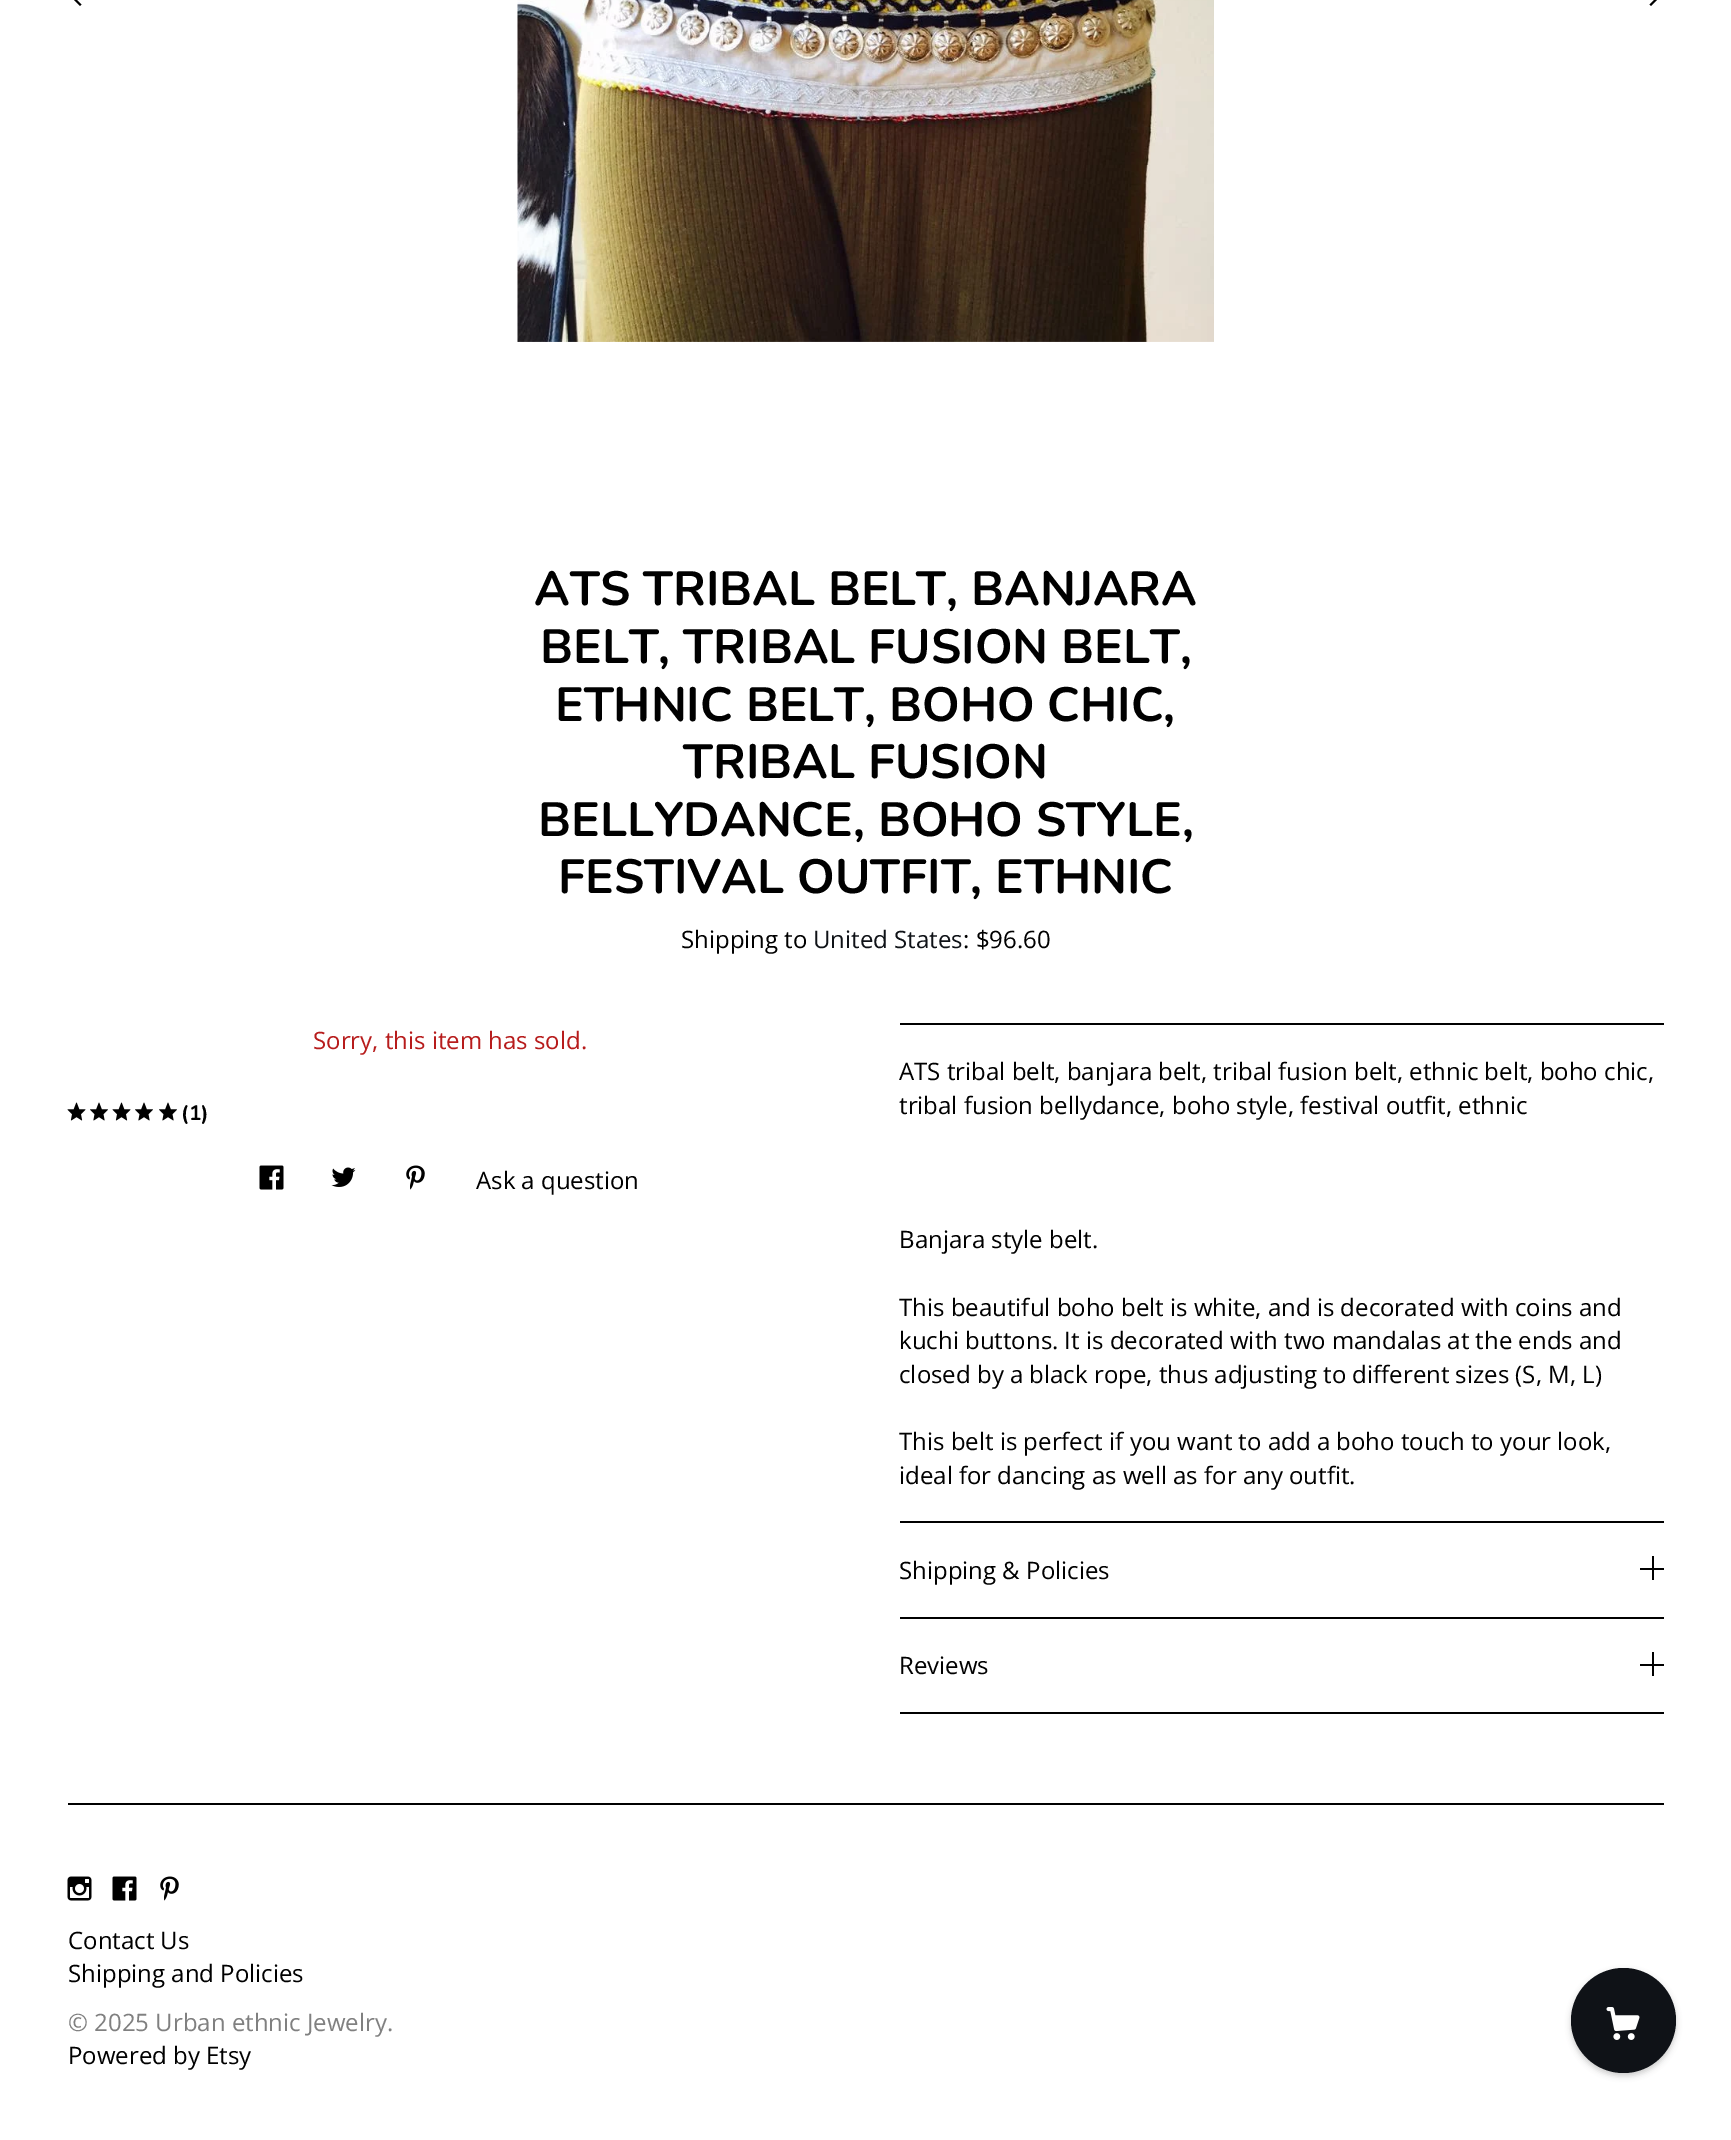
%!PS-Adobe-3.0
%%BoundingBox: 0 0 1731 2140
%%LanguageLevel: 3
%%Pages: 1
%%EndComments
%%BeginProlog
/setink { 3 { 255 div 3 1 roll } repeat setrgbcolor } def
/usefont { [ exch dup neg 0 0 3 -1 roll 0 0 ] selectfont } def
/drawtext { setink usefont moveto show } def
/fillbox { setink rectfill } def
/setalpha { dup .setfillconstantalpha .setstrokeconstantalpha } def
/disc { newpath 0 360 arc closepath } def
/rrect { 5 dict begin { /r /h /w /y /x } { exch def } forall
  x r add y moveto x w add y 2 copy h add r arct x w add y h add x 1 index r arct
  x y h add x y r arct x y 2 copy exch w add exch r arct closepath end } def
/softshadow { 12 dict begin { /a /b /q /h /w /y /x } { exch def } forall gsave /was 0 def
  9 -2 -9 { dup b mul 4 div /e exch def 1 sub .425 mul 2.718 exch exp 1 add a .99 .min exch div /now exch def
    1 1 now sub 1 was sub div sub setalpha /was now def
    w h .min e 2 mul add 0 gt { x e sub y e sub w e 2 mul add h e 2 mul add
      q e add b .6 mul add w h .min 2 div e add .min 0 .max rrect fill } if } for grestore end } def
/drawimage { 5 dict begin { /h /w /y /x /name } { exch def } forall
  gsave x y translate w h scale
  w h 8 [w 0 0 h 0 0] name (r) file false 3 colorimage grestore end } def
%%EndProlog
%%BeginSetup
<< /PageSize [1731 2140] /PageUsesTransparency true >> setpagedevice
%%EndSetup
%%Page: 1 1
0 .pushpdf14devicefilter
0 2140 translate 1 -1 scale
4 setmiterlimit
0 0 1731 2140 255 255 255 fillbox
0 0 0 setink
81.5 4.5 moveto 80 6 lineto 68.5 -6 lineto 69.5 -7 lineto closepath fill
1649.5 4.5 moveto 1661.5 -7 lineto 1662.5 -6 lineto 1651 6 lineto closepath fill
(assets/img1.rgb) 517 0 697 342 drawimage
(ATS TRIBAL BELT, BANJARA) 534 605 /Nunito-Bold 48 0 0 0 drawtext
(BELT, TRIBAL FUSION BELT,) 540 663 /Nunito-Bold 48 0 0 0 drawtext
(ETHNIC BELT, BOHO CHIC,) 555 721 /Nunito-Bold 48 0 0 0 drawtext
(TRIBAL FUSION) 683 778 /Nunito-Bold 48 0 0 0 drawtext
(BELLYDANCE, BOHO STYLE,) 538 836 /Nunito-Bold 48 0 0 0 drawtext
(FESTIVAL OUTFIT, ETHNIC) 558 893 /Nunito-Bold 48 0 0 0 drawtext
(Shipping to) 681 948 /OpenSans-Regular 24 0 0 0 drawtext
(United States) 813 948 /OpenSans-Regular 24 15 18 23 drawtext
(: $96.60) 963 948 /OpenSans-Regular 24 0 0 0 drawtext
(Sorry, this item has sold.) 313 1049 /OpenSans-Regular 24 183 28 28 drawtext
(assets/img2.rgb) 67 1102 19 19 drawimage
(assets/img3.rgb) 90 1102 18 19 drawimage
(assets/img2.rgb) 112 1102 19 19 drawimage
(assets/img3.rgb) 135 1102 18 19 drawimage
(assets/img3.rgb) 159 1102 18 19 drawimage
(\(1\)) 181 1120 /Nunito-Bold 21 0 0 0 drawtext
(assets/img4.rgb) 259 1165 25 25 drawimage
(assets/img5.rgb) 331 1167 25 20 drawimage
(assets/img6.rgb) 406 1165 19 25 drawimage
(Ask a question) 476 1189 /OpenSans-Regular 24 0 0 0 drawtext
900 1023 764 2 0 0 0 fillbox
900 1521 764 2 0 0 0 fillbox
(ATS tribal belt, banjara belt, tribal fusion belt, ethnic belt, boho chic,) 899 1080 /OpenSans-Regular 24 0 0 0 drawtext
(tribal fusion bellydance, boho style, festival outfit, ethnic) 899 1114 /OpenSans-Regular 24 0 0 0 drawtext
(Banjara style belt.) 899 1248 /OpenSans-Regular 24 0 0 0 drawtext
(This beautiful boho belt is white, and is decorated with coins and) 899 1316 /OpenSans-Regular 24 0 0 0 drawtext
(kuchi buttons. It is decorated with two mandalas at the ends and) 899 1349 /OpenSans-Regular 24 0 0 0 drawtext
(closed by a black rope, thus adjusting to different sizes \(S, M, L\)) 899 1383 /OpenSans-Regular 24 0 0 0 drawtext
(This belt is perfect if you want to add a boho touch to your look,) 899 1450 /OpenSans-Regular 24 0 0 0 drawtext
(ideal for dancing as well as for any outfit.) 899 1484 /OpenSans-Regular 24 0 0 0 drawtext
900 1617 764 2 0 0 0 fillbox
(Shipping & Policies) 899 1579 /OpenSans-Regular 24 0 0 0 drawtext
1640 1568 24 2 0 0 0 fillbox
1652 1556 2 24 0 0 0 fillbox
900 1712 764 2 0 0 0 fillbox
(Reviews) 899 1674 /OpenSans-Regular 24 0 0 0 drawtext
1640 1664 24 2 0 0 0 fillbox
1652 1652 2 24 0 0 0 fillbox
68 1803 1596 2 0 0 0 fillbox
(assets/img7.rgb) 67 1876 25 25 drawimage
(assets/img4.rgb) 112 1876 25 25 drawimage
(assets/img6.rgb) 160 1876 19 25 drawimage
(Contact Us) 68 1949 /OpenSans-Regular 24 0 0 0 drawtext
(Shipping and Policies) 68 1982 /OpenSans-Regular 24 0 0 0 drawtext
(© 2025 Urban ethnic Jewelry.) 68 2031 /OpenSans-Regular 24 128 128 128 drawtext
(Powered by Etsy) 68 2064 /OpenSans-Regular 24 0 0 0 drawtext
1571 1971 105 105 52.5 3 0.2 softshadow
15 18 23 setink
1623.5 2020.5 52.5 disc fill
(assets/img8.rgb) 1606 2007 34 33 drawimage
.poppdf14devicefilter showpage
%%EOF
